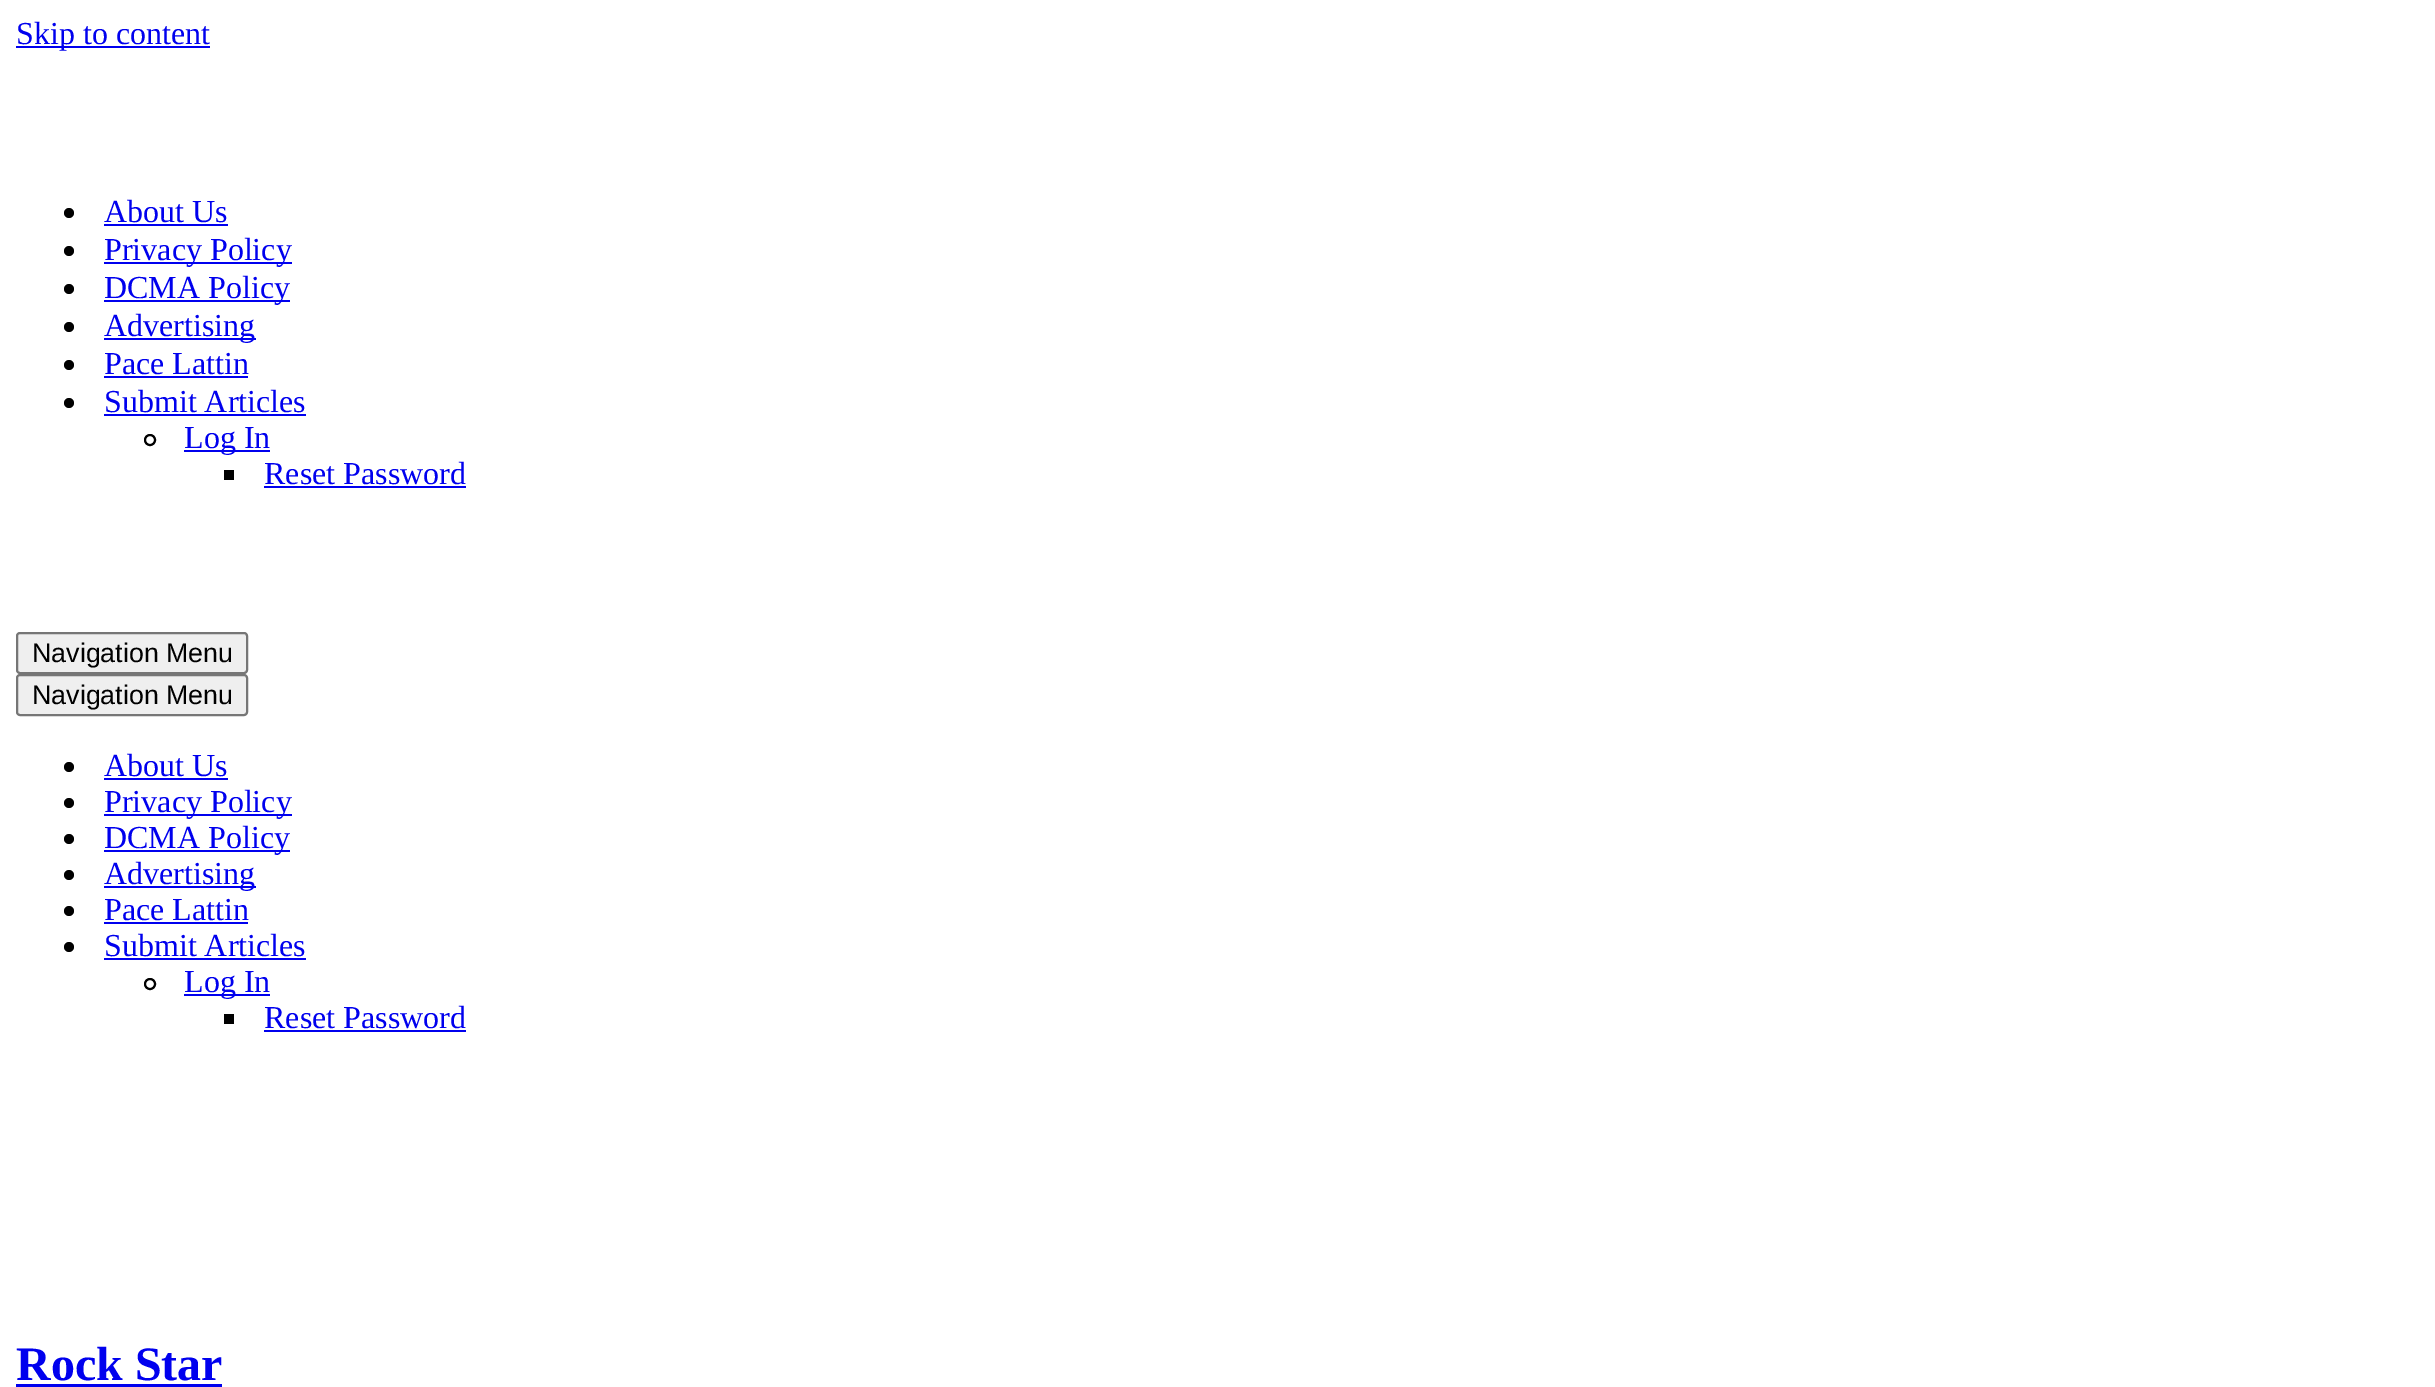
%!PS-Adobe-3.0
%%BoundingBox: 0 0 2435 1387
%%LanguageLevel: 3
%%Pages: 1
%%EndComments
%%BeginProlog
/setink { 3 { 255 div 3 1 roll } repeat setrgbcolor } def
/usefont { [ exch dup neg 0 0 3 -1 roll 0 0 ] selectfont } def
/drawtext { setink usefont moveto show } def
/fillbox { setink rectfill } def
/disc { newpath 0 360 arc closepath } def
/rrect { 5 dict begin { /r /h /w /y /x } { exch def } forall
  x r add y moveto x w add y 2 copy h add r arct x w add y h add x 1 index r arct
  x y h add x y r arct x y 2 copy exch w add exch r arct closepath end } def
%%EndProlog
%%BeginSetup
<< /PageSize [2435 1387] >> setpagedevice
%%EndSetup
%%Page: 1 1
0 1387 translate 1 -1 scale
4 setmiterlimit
0 0 2435 1387 255 255 255 fillbox
16 46 194 2 0 0 238 fillbox
(Skip to content) 16 44 /LiberationSerif-Regular 32 0 0 238 drawtext
0 0 0 setink
69 213 5 disc fill
(About Us) 104 222 /LiberationSerif-Regular 32 0 0 238 drawtext
104 224 124 2 0 0 238 fillbox
0 0 0 setink
69 251 5 disc fill
104 262 188 2 0 0 238 fillbox
(Privacy Policy) 104 260 /LiberationSerif-Regular 32 0 0 238 drawtext
0 0 0 setink
69 289 5 disc fill
104 300 186 2 0 0 238 fillbox
(DCMA Policy) 104 298 /LiberationSerif-Regular 32 0 0 238 drawtext
0 0 0 setink
69 327 5 disc fill
104 338 152 2 0 0 238 fillbox
(Advertising) 104 336 /LiberationSerif-Regular 32 0 0 238 drawtext
0 0 0 setink
69 365 5 disc fill
(Pace Lattin) 104 374 /LiberationSerif-Regular 32 0 0 238 drawtext
104 376 144 2 0 0 238 fillbox
0 0 0 setink
69 403 5 disc fill
(Submit Articles) 104 412 /LiberationSerif-Regular 32 0 0 238 drawtext
104 414 202 2 0 0 238 fillbox
0 0 0 setink
2 setlinewidth
150 440 5 disc stroke
184 450 86 2 0 0 238 fillbox
(Log In) 184 448 /LiberationSerif-Regular 32 0 0 238 drawtext
224 470 10 10 0 0 0 fillbox
(Reset Password) 264 484 /LiberationSerif-Regular 32 0 0 238 drawtext
264 486 202 2 0 0 238 fillbox
239 239 239 setink
17 633 230 40 3 rrect gsave fill grestore
118 118 118 setink
stroke
(Navigation Menu) 32 662 /LiberationSans-Regular 26.75 0 0 0 drawtext
239 239 239 setink
17 675 230 40 3 rrect gsave fill grestore
118 118 118 setink
stroke
(Navigation Menu) 32 704 /LiberationSans-Regular 26.75 0 0 0 drawtext
69 767 5 disc fill
(About Us) 104 776 /LiberationSerif-Regular 32 0 0 238 drawtext
104 778 124 2 0 0 238 fillbox
0 0 0 setink
69 803 5 disc fill
104 814 188 2 0 0 238 fillbox
(Privacy Policy) 104 812 /LiberationSerif-Regular 32 0 0 238 drawtext
0 0 0 setink
69 839 5 disc fill
104 850 186 2 0 0 238 fillbox
(DCMA Policy) 104 848 /LiberationSerif-Regular 32 0 0 238 drawtext
0 0 0 setink
69 875 5 disc fill
104 886 152 2 0 0 238 fillbox
(Advertising) 104 884 /LiberationSerif-Regular 32 0 0 238 drawtext
0 0 0 setink
69 911 5 disc fill
(Pace Lattin) 104 920 /LiberationSerif-Regular 32 0 0 238 drawtext
104 922 144 2 0 0 238 fillbox
0 0 0 setink
69 947 5 disc fill
(Submit Articles) 104 956 /LiberationSerif-Regular 32 0 0 238 drawtext
104 958 202 2 0 0 238 fillbox
0 0 0 setink
150 984 5 disc stroke
184 994 86 2 0 0 238 fillbox
(Log In) 184 992 /LiberationSerif-Regular 32 0 0 238 drawtext
224 1014 10 10 0 0 0 fillbox
(Reset Password) 264 1028 /LiberationSerif-Regular 32 0 0 238 drawtext
264 1030 202 2 0 0 238 fillbox
(Rock Star) 16 1380 /LiberationSerif-Bold 48 0 0 238 drawtext
16 1384 206 3 0 0 238 fillbox
showpage
%%EOF
